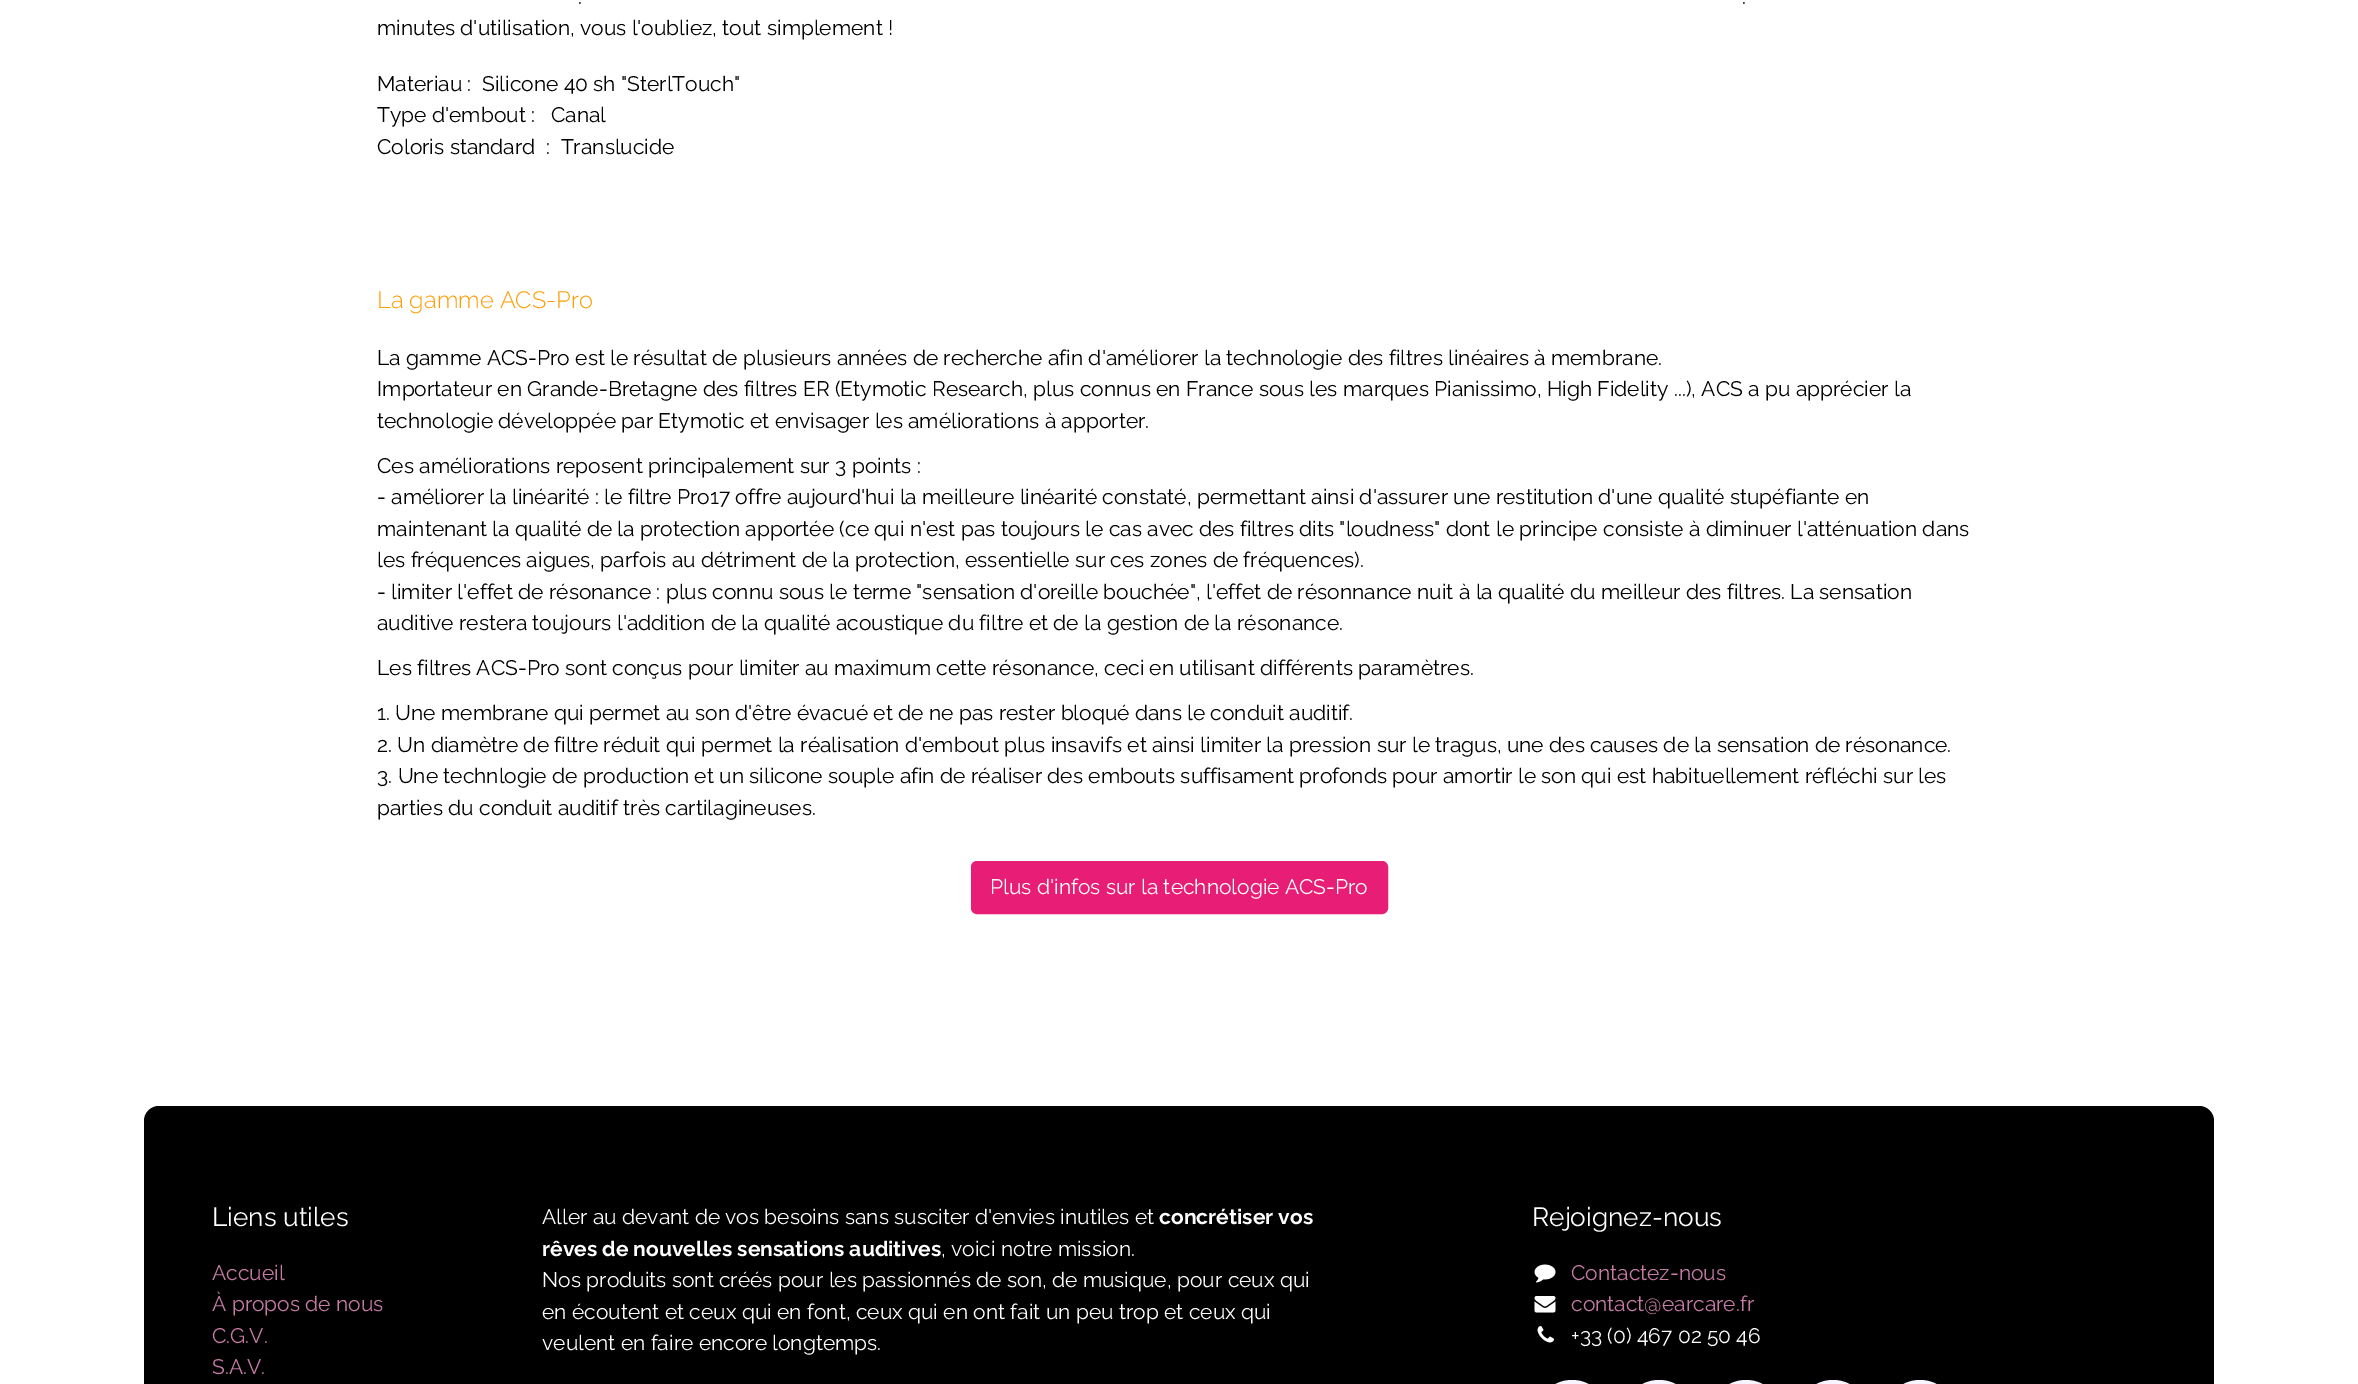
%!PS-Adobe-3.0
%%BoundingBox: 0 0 2358 1384
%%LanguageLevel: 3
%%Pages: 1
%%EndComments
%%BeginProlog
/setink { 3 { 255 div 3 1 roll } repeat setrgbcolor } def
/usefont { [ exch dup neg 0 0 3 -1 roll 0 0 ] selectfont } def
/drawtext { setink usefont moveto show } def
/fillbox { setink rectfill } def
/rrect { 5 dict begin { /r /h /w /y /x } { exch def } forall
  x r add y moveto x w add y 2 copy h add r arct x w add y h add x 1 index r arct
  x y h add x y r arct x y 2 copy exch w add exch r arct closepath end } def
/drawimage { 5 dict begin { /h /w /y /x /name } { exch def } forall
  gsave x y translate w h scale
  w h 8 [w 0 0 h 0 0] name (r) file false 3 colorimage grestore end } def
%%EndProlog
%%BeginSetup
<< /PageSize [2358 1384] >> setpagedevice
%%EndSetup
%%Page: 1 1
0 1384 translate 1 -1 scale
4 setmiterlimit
0 0 2358 1384 255 255 255 fillbox
(.) 578 4 /Raleway-Regular 21 0 0 0 drawtext
(.) 1742 4 /Raleway-Regular 21 0 0 0 drawtext
(minutes d'utilisation, vous l'oubliez, tout simplement !) 377 35 /Raleway-Regular 21 0 0 0 drawtext
(Materiau :  Silicone 40 sh "SterlTouch") 377 91 /Raleway-Regular 21 0 0 0 drawtext
(Type d'embout :   Canal) 377 122 /Raleway-Regular 21 0 0 0 drawtext
(Coloris standard  :  Translucide) 377 154 /Raleway-Regular 21 0 0 0 drawtext
(La gamme ACS-Pro) 377 308 /Raleway-Light 23.6 255 156 0 drawtext
(La gamme ACS-Pro est le résultat de plusieurs années de recherche afin d'améliorer la technologie des filtres linéaires à membrane.) 377 365 /Raleway-Regular 21 0 0 0 drawtext
(Importateur en Grande-Bretagne des filtres ER \(Etymotic Research, plus connus en France sous les marques Pianissimo, High Fidelity ...\), ACS a pu apprécier la) 377 396 /Raleway-Regular 21 0 0 0 drawtext
(technologie développée par Etymotic et envisager les améliorations à apporter.) 377 428 /Raleway-Regular 21 0 0 0 drawtext
(Ces améliorations reposent principalement sur 3 points :) 377 473 /Raleway-Regular 21 0 0 0 drawtext
(- améliorer la linéarité : le filtre Pro17 offre aujourd'hui la meilleure linéarité constaté, permettant ainsi d'assurer une restitution d'une qualité stupéfiante en) 377 504 /Raleway-Regular 21 0 0 0 drawtext
(maintenant la qualité de la protection apportée \(ce qui n'est pas toujours le cas avec des filtres dits "loudness" dont le principe consiste à diminuer l'atténuation dans) 377 536 /Raleway-Regular 21 0 0 0 drawtext
(les fréquences aigues, parfois au détriment de la protection, essentielle sur ces zones de fréquences\).) 377 567 /Raleway-Regular 21 0 0 0 drawtext
(- limiter l'effet de résonance : plus connu sous le terme "sensation d'oreille bouchée", l'effet de résonnance nuit à la qualité du meilleur des filtres. La sensation) 377 599 /Raleway-Regular 21 0 0 0 drawtext
(auditive restera toujours l'addition de la qualité acoustique du filtre et de la gestion de la résonance.) 377 630 /Raleway-Regular 21 0 0 0 drawtext
(Les filtres ACS-Pro sont conçus pour limiter au maximum cette résonance, ceci en utilisant différents paramètres.) 377 675 /Raleway-Regular 21 0 0 0 drawtext
(1. Une membrane qui permet au son d'être évacué et de ne pas rester bloqué dans le conduit auditif.) 377 720 /Raleway-Regular 21 0 0 0 drawtext
(2. Un diamètre de filtre réduit qui permet la réalisation d'embout plus insavifs et ainsi limiter la pression sur le tragus, une des causes de la sensation de résonance.) 377 752 /Raleway-Regular 21 0 0 0 drawtext
(3. Une technlogie de production et un silicone souple afin de réaliser des embouts suffisament profonds pour amortir le son qui est habituellement réfléchi sur les) 377 783 /Raleway-Regular 21 0 0 0 drawtext
(parties du conduit auditif très cartilagineuses.) 377 815 /Raleway-Regular 21 0 0 0 drawtext
232 29 117 setink
972 862 415 51 5 rrect gsave fill grestore
2 setlinewidth
stroke
(Plus d'infos sur la technologie ACS-Pro) 990 894 /Raleway-Regular 21 255 255 255 drawtext
0 0 0 setink
144 1106 2070 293 15 rrect fill
(Liens utiles) 212 1226 /Raleway-Regular 26.25 255 255 255 drawtext
(Accueil) 212 1280 /Raleway-Regular 21 198 123 165 drawtext
(À propos de nous) 212 1311 /Raleway-Regular 21 198 123 165 drawtext
(C.G.V.) 212 1343 /Raleway-Regular 21 198 123 165 drawtext
(S.A.V.) 212 1374 /Raleway-Regular 21 198 123 165 drawtext
(Aller au devant de vos besoins sans susciter d'envies inutiles et) 542 1224 /Raleway-Regular 21 255 255 255 drawtext
(concrétiser vos) 1159 1224 /Raleway-Bold 21 255 255 255 drawtext
(rêves de nouvelles sensations auditives) 542 1256 /Raleway-Bold 21 255 255 255 drawtext
(, voici notre mission.) 941 1256 /Raleway-Regular 21 255 255 255 drawtext
(Nos produits sont créés pour les passionnés de son, de musique, pour ceux qui) 542 1287 /Raleway-Regular 21 255 255 255 drawtext
(en écoutent et ceux qui en font, ceux qui en ont fait un peu trop et ceux qui) 542 1319 /Raleway-Regular 21 255 255 255 drawtext
(veulent en faire encore longtemps.) 542 1350 /Raleway-Regular 21 255 255 255 drawtext
(Rejoignez-nous) 1532 1226 /Raleway-Regular 26.25 255 255 255 drawtext
(assets/img1.rgb) 1534 1264 22 19 drawimage
(Contactez-nous) 1571 1280 /Raleway-Regular 21 198 123 165 drawtext
(assets/img2.rgb) 1534 1296 22 17 drawimage
(contact@earcare.fr) 1571 1311 /Raleway-Regular 21 198 123 165 drawtext
(assets/img3.rgb) 1537 1326 17 17 drawimage
(+33 \(0\) 467 02 50 46) 1571 1343 /Raleway-Regular 21 255 255 255 drawtext
247 243 255 setink
1536 1380 72 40 36 rrect fill
1623 1380 72 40 36 rrect fill
1710 1380 72 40 36 rrect fill
1797 1380 72 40 36 rrect fill
1884 1380 72 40 36 rrect fill
showpage
%%EOF
